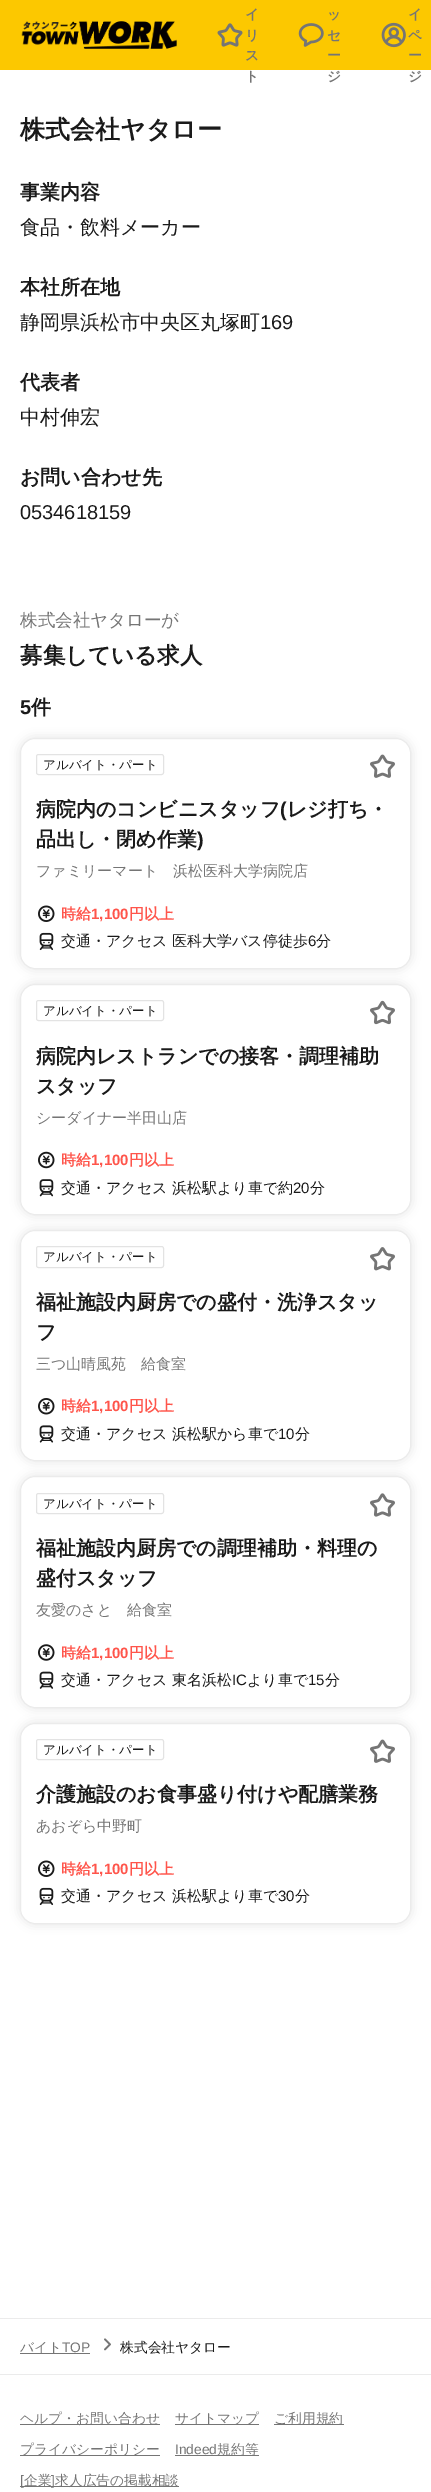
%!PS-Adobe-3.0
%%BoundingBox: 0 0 431 2492
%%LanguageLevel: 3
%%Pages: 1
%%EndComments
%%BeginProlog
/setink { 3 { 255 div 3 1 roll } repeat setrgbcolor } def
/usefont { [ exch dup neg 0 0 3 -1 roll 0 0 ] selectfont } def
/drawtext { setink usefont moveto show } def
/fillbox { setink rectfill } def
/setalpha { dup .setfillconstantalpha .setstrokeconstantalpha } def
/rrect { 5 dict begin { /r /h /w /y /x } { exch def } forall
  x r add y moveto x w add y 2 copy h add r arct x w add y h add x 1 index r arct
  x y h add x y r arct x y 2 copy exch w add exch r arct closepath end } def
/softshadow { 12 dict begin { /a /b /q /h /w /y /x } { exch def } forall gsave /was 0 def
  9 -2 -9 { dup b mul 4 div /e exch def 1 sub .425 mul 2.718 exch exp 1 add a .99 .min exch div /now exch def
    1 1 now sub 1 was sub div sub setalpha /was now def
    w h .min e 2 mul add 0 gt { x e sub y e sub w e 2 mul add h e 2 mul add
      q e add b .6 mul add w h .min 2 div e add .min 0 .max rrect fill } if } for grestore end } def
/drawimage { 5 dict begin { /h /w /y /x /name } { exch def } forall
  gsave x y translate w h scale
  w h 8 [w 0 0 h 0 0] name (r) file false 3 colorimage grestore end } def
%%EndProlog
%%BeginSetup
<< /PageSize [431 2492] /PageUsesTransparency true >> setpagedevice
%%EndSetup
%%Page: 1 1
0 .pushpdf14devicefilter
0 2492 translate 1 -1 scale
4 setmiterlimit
0 0 431 2492 255 255 255 fillbox
0 0 431 70 252 200 0 fillbox
(assets/img1.rgb) 21 21 156 28 drawimage
(assets/img2.rgb) 217 23 26 24 drawimage
(イ) 245 19 /WenQuanYiZenHei-Bold 13.75 117 117 117 drawtext
(リ) 245 40 /WenQuanYiZenHei-Bold 13.75 117 117 117 drawtext
(ス) 245 60 /WenQuanYiZenHei-Bold 13.75 117 117 117 drawtext
(ト) 245 81 /WenQuanYiZenHei-Bold 13.75 117 117 117 drawtext
(assets/img3.rgb) 298 23 26 24 drawimage
(ッ) 327 19 /WenQuanYiZenHei-Bold 13.75 117 117 117 drawtext
(セ) 327 40 /WenQuanYiZenHei-Bold 13.75 117 117 117 drawtext
(ー) 327 60 /WenQuanYiZenHei-Bold 13.75 117 117 117 drawtext
(ジ) 327 81 /WenQuanYiZenHei-Bold 13.75 117 117 117 drawtext
(assets/img4.rgb) 381 22 25 26 drawimage
(イ) 408 19 /WenQuanYiZenHei-Bold 13.75 117 117 117 drawtext
(ペ) 408 40 /WenQuanYiZenHei-Bold 13.75 117 117 117 drawtext
(ー) 408 60 /WenQuanYiZenHei-Bold 13.75 117 117 117 drawtext
(ジ) 408 81 /WenQuanYiZenHei-Bold 13.75 117 117 117 drawtext
(株式会社ヤタロー) 20 138 /WenQuanYiZenHei-Bold 25 26 26 26 drawtext
(事業内容) 20 199 /WenQuanYiZenHei-Bold 20 26 26 26 drawtext
(食品・飲料メーカー) 20 234 /WenQuanYiZenHei-Medium 20 26 26 26 drawtext
(本社所在地) 20 294 /WenQuanYiZenHei-Bold 20 26 26 26 drawtext
(静岡県浜松市中央区丸塚町) 20 329 /WenQuanYiZenHei-Medium 20 26 26 26 drawtext
(169) 260 329 /LiberationSans-Regular 20 26 26 26 drawtext
(代表者) 20 389 /WenQuanYiZenHei-Bold 20 26 26 26 drawtext
(中村伸宏) 20 424 /WenQuanYiZenHei-Medium 20 26 26 26 drawtext
(お問い合わせ先) 20 484 /WenQuanYiZenHei-Bold 20 26 26 26 drawtext
(0534618159) 20 519 /LiberationSans-Regular 20 26 26 26 drawtext
(株式会社ヤタローが) 20 626 /WenQuanYiZenHei-Medium 17.5 117 117 117 drawtext
(募集している求人) 20 663 /WenQuanYiZenHei-Bold 22.5 26 26 26 drawtext
(5) 20 714 /LiberationSans-Bold 20 26 26 26 drawtext
(件) 31 714 /WenQuanYiZenHei-Bold 20 26 26 26 drawtext
20 738 391 231 15 5 0.12 softshadow
255 255 255 setink
20.5 738.5 390 230 14.5 rrect gsave fill grestore
235 235 235 setink
stroke
227 227 227 setink
36.5 754.5 127 20 2 rrect stroke
(アルバイト・パート) 43 769 /WenQuanYiZenHei-Medium 12.5 26 26 26 drawtext
(assets/img5.rgb) 370 754 25 24 drawimage
(病院内のコンビニスタッフ) 36 816 /WenQuanYiZenHei-Bold 20 26 26 26 drawtext
(\() 280 816 /LiberationSans-Bold 20 26 26 26 drawtext
(レジ打ち・) 287 816 /WenQuanYiZenHei-Bold 20 26 26 26 drawtext
(品出し・閉め作業) 36 846 /WenQuanYiZenHei-Bold 20 26 26 26 drawtext
(\)) 197 846 /LiberationSans-Bold 20 26 26 26 drawtext
(ファミリーマート　浜松医科大学病院店) 36 876 /WenQuanYiZenHei-Medium 15 117 117 117 drawtext
(assets/img6.rgb) 38 905 17 17 drawimage
(時給) 61 919 /WenQuanYiZenHei-Bold 15 255 85 75 drawtext
(1,100) 91 919 /LiberationSans-Bold 15 255 85 75 drawtext
(円以上) 129 919 /WenQuanYiZenHei-Bold 15 255 85 75 drawtext
(assets/img7.rgb) 39 932 15 19 drawimage
(交通・アクセス 医科大学バス停徒歩) 61 946 /WenQuanYiZenHei-Medium 15 26 26 26 drawtext
(6) 308 946 /LiberationSans-Regular 15 26 26 26 drawtext
(分) 316 946 /WenQuanYiZenHei-Medium 15 26 26 26 drawtext
20 984 391 231 15 5 0.12 softshadow
255 255 255 setink
20.5 984.5 390 230 14.5 rrect gsave fill grestore
235 235 235 setink
stroke
227 227 227 setink
36.5 1000.5 127 20 2 rrect stroke
(アルバイト・パート) 43 1015 /WenQuanYiZenHei-Medium 12.5 26 26 26 drawtext
(assets/img8.rgb) 370 1000 25 25 drawimage
(病院内レストランでの接客・調理補助) 36 1063 /WenQuanYiZenHei-Bold 20 26 26 26 drawtext
(スタッフ) 36 1093 /WenQuanYiZenHei-Bold 20 26 26 26 drawtext
(シーダイナー半田山店) 36 1123 /WenQuanYiZenHei-Medium 15 117 117 117 drawtext
(assets/img9.rgb) 38 1151 17 18 drawimage
(時給) 61 1165 /WenQuanYiZenHei-Bold 15 255 85 75 drawtext
(1,100) 91 1165 /LiberationSans-Bold 15 255 85 75 drawtext
(円以上) 129 1165 /WenQuanYiZenHei-Bold 15 255 85 75 drawtext
(assets/img10.rgb) 39 1179 15 18 drawimage
(交通・アクセス 浜松駅より車で約) 61 1193 /WenQuanYiZenHei-Medium 15 26 26 26 drawtext
(20) 293 1193 /LiberationSans-Regular 15 26 26 26 drawtext
(分) 310 1193 /WenQuanYiZenHei-Medium 15 26 26 26 drawtext
20 1230 391 231 15 5 0.12 softshadow
255 255 255 setink
20.5 1230.5 390 230 14.5 rrect gsave fill grestore
235 235 235 setink
stroke
227 227 227 setink
36.5 1246.5 127 21 2 rrect stroke
(アルバイト・パート) 43 1261 /WenQuanYiZenHei-Medium 12.5 26 26 26 drawtext
(assets/img11.rgb) 370 1247 25 24 drawimage
(福祉施設内厨房での盛付・洗浄スタッ) 36 1309 /WenQuanYiZenHei-Bold 20 26 26 26 drawtext
(フ) 36 1339 /WenQuanYiZenHei-Bold 20 26 26 26 drawtext
(三つ山晴風苑　給食室) 36 1369 /WenQuanYiZenHei-Medium 15 117 117 117 drawtext
(assets/img12.rgb) 38 1398 17 17 drawimage
(時給) 61 1411 /WenQuanYiZenHei-Bold 15 255 85 75 drawtext
(1,100) 91 1411 /LiberationSans-Bold 15 255 85 75 drawtext
(円以上) 129 1411 /WenQuanYiZenHei-Bold 15 255 85 75 drawtext
(assets/img13.rgb) 39 1425 15 18 drawimage
(交通・アクセス 浜松駅から車で) 61 1439 /WenQuanYiZenHei-Medium 15 26 26 26 drawtext
(10) 278 1439 /LiberationSans-Regular 15 26 26 26 drawtext
(分) 295 1439 /WenQuanYiZenHei-Medium 15 26 26 26 drawtext
20 1476 391 232 15 5 0.12 softshadow
255 255 255 setink
20.5 1476.5 390 231 14.5 rrect gsave fill grestore
235 235 235 setink
stroke
227 227 227 setink
36.5 1493.5 127 20 2 rrect stroke
(アルバイト・パート) 43 1508 /WenQuanYiZenHei-Medium 12.5 26 26 26 drawtext
(assets/img14.rgb) 370 1493 25 24 drawimage
(福祉施設内厨房での調理補助・料理の) 36 1555 /WenQuanYiZenHei-Bold 20 26 26 26 drawtext
(盛付スタッフ) 36 1585 /WenQuanYiZenHei-Bold 20 26 26 26 drawtext
(友愛のさと　給食室) 36 1615 /WenQuanYiZenHei-Medium 15 117 117 117 drawtext
(assets/img15.rgb) 38 1644 17 17 drawimage
(時給) 61 1658 /WenQuanYiZenHei-Bold 15 255 85 75 drawtext
(1,100) 91 1658 /LiberationSans-Bold 15 255 85 75 drawtext
(円以上) 129 1658 /WenQuanYiZenHei-Bold 15 255 85 75 drawtext
(assets/img16.rgb) 39 1671 15 18 drawimage
(交通・アクセス 東名浜松) 61 1685 /WenQuanYiZenHei-Medium 15 26 26 26 drawtext
(IC) 232 1685 /LiberationSans-Regular 15 26 26 26 drawtext
(より車で) 247 1685 /WenQuanYiZenHei-Medium 15 26 26 26 drawtext
(15) 308 1685 /LiberationSans-Regular 15 26 26 26 drawtext
(分) 325 1685 /WenQuanYiZenHei-Medium 15 26 26 26 drawtext
20 1723 391 201 15 5 0.12 softshadow
255 255 255 setink
20.5 1723.5 390 200 14.5 rrect gsave fill grestore
235 235 235 setink
stroke
227 227 227 setink
36.5 1739.5 127 20 2 rrect stroke
(アルバイト・パート) 43 1754 /WenQuanYiZenHei-Medium 12.5 26 26 26 drawtext
(assets/img5.rgb) 370 1739 25 24 drawimage
(介護施設のお食事盛り付けや配膳業務) 36 1801 /WenQuanYiZenHei-Bold 20 26 26 26 drawtext
(あおぞら中野町) 36 1831 /WenQuanYiZenHei-Medium 15 117 117 117 drawtext
(assets/img6.rgb) 38 1860 17 17 drawimage
(時給) 61 1874 /WenQuanYiZenHei-Bold 15 255 85 75 drawtext
(1,100) 91 1874 /LiberationSans-Bold 15 255 85 75 drawtext
(円以上) 129 1874 /WenQuanYiZenHei-Bold 15 255 85 75 drawtext
(assets/img7.rgb) 39 1887 15 19 drawimage
(交通・アクセス 浜松駅より車で) 61 1901 /WenQuanYiZenHei-Medium 15 26 26 26 drawtext
(30) 278 1901 /LiberationSans-Regular 15 26 26 26 drawtext
(分) 295 1901 /WenQuanYiZenHei-Medium 15 26 26 26 drawtext
0 2318 431 1 235 235 235 fillbox
20 2353 70 1 117 117 117 fillbox
(バイト) 20 2352 /WenQuanYiZenHei-Medium 13.75 117 117 117 drawtext
(TOP) 62 2352 /LiberationSans-Regular 13.75 117 117 117 drawtext
(assets/img17.rgb) 104 2338 7 13 drawimage
(株式会社ヤタロー) 120 2352 /WenQuanYiZenHei-Medium 13.75 26 26 26 drawtext
0 2374 431 1 235 235 235 fillbox
20 2424 140 1 117 117 117 fillbox
(ヘルプ・お問い合わせ) 20 2423 /WenQuanYiZenHei-Medium 13.75 117 117 117 drawtext
175 2424 84 1 117 117 117 fillbox
(サイトマップ) 175 2423 /WenQuanYiZenHei-Medium 13.75 117 117 117 drawtext
274 2424 70 1 117 117 117 fillbox
(ご利用規約) 274 2423 /WenQuanYiZenHei-Medium 13.75 117 117 117 drawtext
20 2455 140 1 117 117 117 fillbox
(プライバシーポリシー) 20 2454 /WenQuanYiZenHei-Medium 13.75 117 117 117 drawtext
(Indeed) 175 2454 /LiberationSans-Regular 13.75 117 117 117 drawtext
175 2455 84 1 117 117 117 fillbox
(規約等) 217 2454 /WenQuanYiZenHei-Medium 13.75 117 117 117 drawtext
20 2486 159 1 117 117 117 fillbox
([) 20 2485 /LiberationSans-Regular 13.75 117 117 117 drawtext
(企業) 24 2485 /WenQuanYiZenHei-Medium 13.75 117 117 117 drawtext
(]) 51 2485 /LiberationSans-Regular 13.75 117 117 117 drawtext
(求人広告の掲載相談) 55 2485 /WenQuanYiZenHei-Medium 13.75 117 117 117 drawtext
.poppdf14devicefilter showpage
%%EOF
